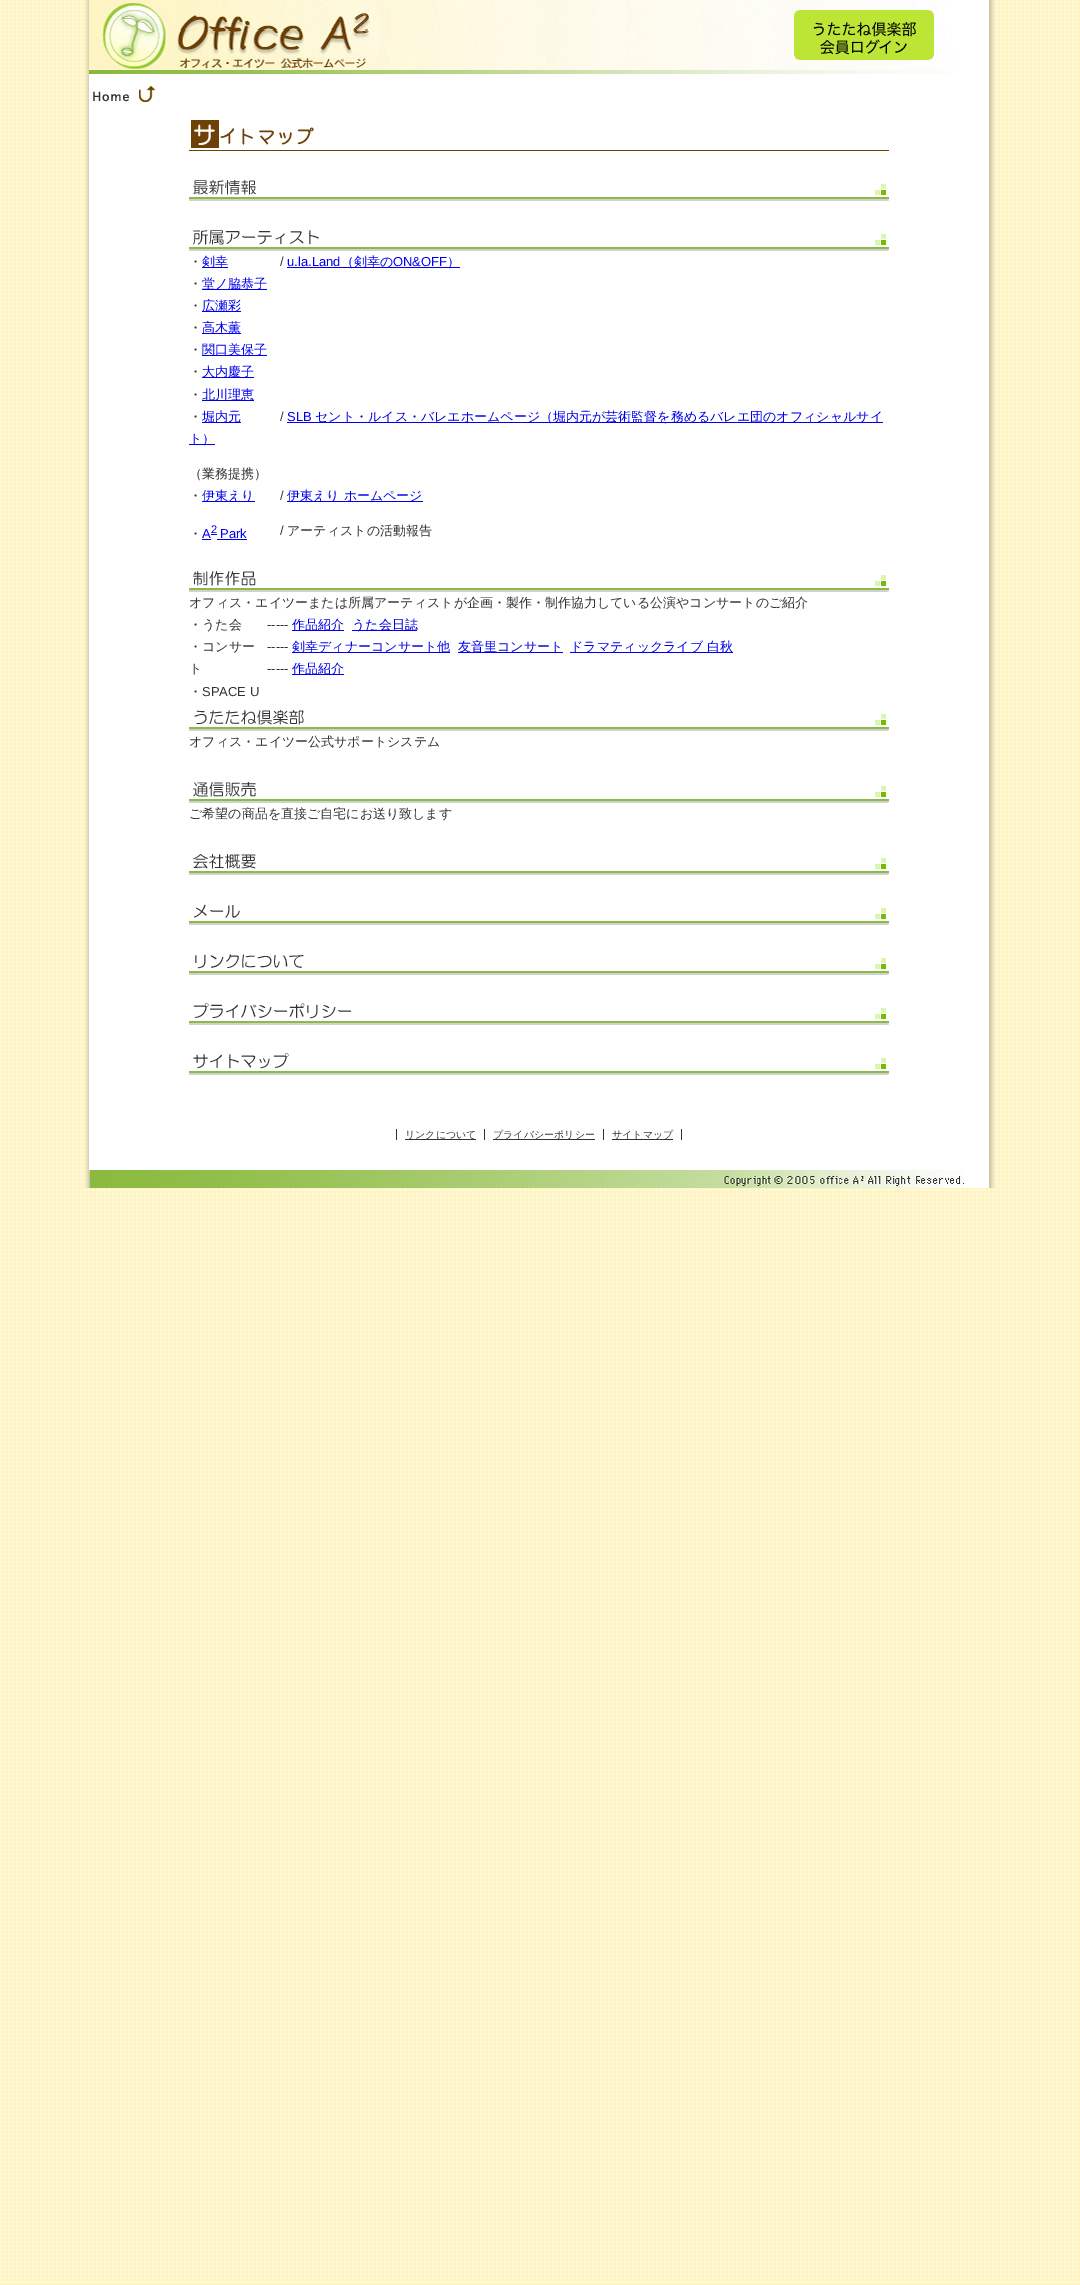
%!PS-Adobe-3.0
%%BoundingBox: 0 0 1080 2285
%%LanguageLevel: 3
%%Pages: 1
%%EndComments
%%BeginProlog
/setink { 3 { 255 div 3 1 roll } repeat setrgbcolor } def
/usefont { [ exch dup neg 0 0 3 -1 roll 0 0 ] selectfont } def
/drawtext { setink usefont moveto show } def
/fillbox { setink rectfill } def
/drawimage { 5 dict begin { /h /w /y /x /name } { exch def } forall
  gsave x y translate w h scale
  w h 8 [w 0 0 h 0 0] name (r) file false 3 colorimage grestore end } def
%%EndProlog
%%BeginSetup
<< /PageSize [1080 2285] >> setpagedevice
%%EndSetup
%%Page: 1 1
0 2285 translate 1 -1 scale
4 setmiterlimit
0 0 1080 2285 255 255 255 fillbox
(assets/img1.rgb) 0 0 1080 2285 drawimage
89 0 900 1188 255 255 255 fillbox
(assets/img2.rgb) 85 0 910 1188 drawimage
(assets/img3.rgb) 89 0 865 74 drawimage
(assets/img4.rgb) 794 10 140 50 drawimage
(assets/img5.rgb) 93 86 62 16 drawimage
189 150 700 1 110 65 7 fillbox
(assets/img6.rgb) 191 120 123 28 drawimage
(assets/img7.rgb) 189 180 700 21 drawimage
(assets/img8.rgb) 189 230 700 21 drawimage
(・) 189 266 /WenQuanYiZenHei-Medium 13 51 51 51 drawtext
202 267 26 1 0 0 238 fillbox
(剣幸) 202 266 /WenQuanYiZenHei-Medium 13 0 0 238 drawtext
(/) 280 266 /LiberationSans-Regular 13 51 51 51 drawtext
(u.la.Land) 287 266 /LiberationSans-Regular 13 0 0 238 drawtext
287 267 173 1 0 0 238 fillbox
(（剣幸の) 341 266 /WenQuanYiZenHei-Medium 13 0 0 238 drawtext
(ON&OFF) 393 266 /LiberationSans-Regular 13 0 0 238 drawtext
(）) 447 266 /WenQuanYiZenHei-Medium 13 0 0 238 drawtext
(・) 189 288 /WenQuanYiZenHei-Medium 13 51 51 51 drawtext
202 289 65 1 0 0 238 fillbox
(堂ノ脇恭子) 202 288 /WenQuanYiZenHei-Medium 13 0 0 238 drawtext
(・) 189 310 /WenQuanYiZenHei-Medium 13 51 51 51 drawtext
202 311 39 1 0 0 238 fillbox
(広瀬彩) 202 310 /WenQuanYiZenHei-Medium 13 0 0 238 drawtext
(・) 189 332 /WenQuanYiZenHei-Medium 13 51 51 51 drawtext
202 333 39 1 0 0 238 fillbox
(高木薫) 202 332 /WenQuanYiZenHei-Medium 13 0 0 238 drawtext
(・) 189 354 /WenQuanYiZenHei-Medium 13 51 51 51 drawtext
202 355 65 1 0 0 238 fillbox
(関口美保子) 202 354 /WenQuanYiZenHei-Medium 13 0 0 238 drawtext
(・) 189 376 /WenQuanYiZenHei-Medium 13 51 51 51 drawtext
202 377 52 1 0 0 238 fillbox
(大内慶子) 202 376 /WenQuanYiZenHei-Medium 13 0 0 238 drawtext
(・) 189 399 /WenQuanYiZenHei-Medium 13 51 51 51 drawtext
202 400 52 1 0 0 238 fillbox
(北川理恵) 202 399 /WenQuanYiZenHei-Medium 13 0 0 238 drawtext
(・) 189 421 /WenQuanYiZenHei-Medium 13 51 51 51 drawtext
202 422 39 1 0 0 238 fillbox
(堀内元) 202 421 /WenQuanYiZenHei-Medium 13 0 0 238 drawtext
(/) 280 421 /LiberationSans-Regular 13 51 51 51 drawtext
(SLB) 287 421 /LiberationSans-Regular 13 0 0 238 drawtext
287 422 596 1 0 0 238 fillbox
(セント・ルイス・バレエホームページ（堀内元が芸術監督を務めるバレエ団のオフィシャルサイ) 315 421 /WenQuanYiZenHei-Medium 13 0 0 238 drawtext
189 444 26 1 0 0 238 fillbox
(ト）) 189 443 /WenQuanYiZenHei-Medium 13 0 0 238 drawtext
(（業務提携）) 189 478 /WenQuanYiZenHei-Medium 13 51 51 51 drawtext
(・) 189 500 /WenQuanYiZenHei-Medium 13 51 51 51 drawtext
202 501 53 1 0 0 238 fillbox
(伊東えり) 202 500 /WenQuanYiZenHei-Medium 13 0 0 238 drawtext
(/) 280 500 /LiberationSans-Regular 13 51 51 51 drawtext
287 501 136 1 0 0 238 fillbox
(伊東えり ホームページ) 287 500 /WenQuanYiZenHei-Medium 13 0 0 238 drawtext
(・) 189 538 /WenQuanYiZenHei-Medium 13 51 51 51 drawtext
(A) 202 538 /LiberationSans-Regular 13 0 0 238 drawtext
202 539 9 1 0 0 238 fillbox
211 534 6 1 0 0 238 fillbox
(2) 211 533 /LiberationSans-Regular 11 0 0 238 drawtext
(Park) 220 538 /LiberationSans-Regular 13 0 0 238 drawtext
217 539 30 1 0 0 238 fillbox
(/) 280 535 /LiberationSans-Regular 13 51 51 51 drawtext
(アーティストの活動報告) 287 535 /WenQuanYiZenHei-Medium 13 51 51 51 drawtext
(assets/img9.rgb) 189 571 700 21 drawimage
(オフィス・エイツーまたは所属アーティストが企画・製作・制作協力している公演やコンサートのご紹介) 189 607 /WenQuanYiZenHei-Medium 13 51 51 51 drawtext
(・うた会) 189 629 /WenQuanYiZenHei-Medium 13 51 51 51 drawtext
(-----) 267 629 /LiberationSans-Regular 13 51 51 51 drawtext
292 630 52 1 0 0 238 fillbox
(作品紹介) 292 629 /WenQuanYiZenHei-Medium 13 0 0 238 drawtext
352 630 65 1 0 0 238 fillbox
(うた会日誌) 352 629 /WenQuanYiZenHei-Medium 13 0 0 238 drawtext
(・コンサー) 189 651 /WenQuanYiZenHei-Medium 13 51 51 51 drawtext
(ト) 189 673 /WenQuanYiZenHei-Medium 13 51 51 51 drawtext
(-----) 267 651 /LiberationSans-Regular 13 51 51 51 drawtext
292 652 158 1 0 0 238 fillbox
(剣幸ディナーコンサート他) 292 651 /WenQuanYiZenHei-Medium 13 0 0 238 drawtext
458 652 105 1 0 0 238 fillbox
(友音里コンサート) 458 651 /WenQuanYiZenHei-Medium 13 0 0 238 drawtext
570 652 163 1 0 0 238 fillbox
(ドラマティックライブ 白秋) 570 651 /WenQuanYiZenHei-Medium 13 0 0 238 drawtext
(-----) 267 673 /LiberationSans-Regular 13 51 51 51 drawtext
292 674 52 1 0 0 238 fillbox
(作品紹介) 292 673 /WenQuanYiZenHei-Medium 13 0 0 238 drawtext
(・) 189 696 /WenQuanYiZenHei-Medium 13 51 51 51 drawtext
(SPACE U) 202 696 /LiberationSans-Regular 13 51 51 51 drawtext
(assets/img10.rgb) 189 710 700 21 drawimage
(オフィス・エイツー公式サポートシステム) 189 746 /WenQuanYiZenHei-Medium 13 51 51 51 drawtext
(assets/img11.rgb) 189 782 700 21 drawimage
(ご希望の商品を直接ご自宅にお送り致します) 189 818 /WenQuanYiZenHei-Medium 13 51 51 51 drawtext
(assets/img12.rgb) 189 854 700 21 drawimage
(assets/img13.rgb) 189 904 700 21 drawimage
(assets/img14.rgb) 189 954 700 21 drawimage
(assets/img15.rgb) 189 1003 700 22 drawimage
(assets/img16.rgb) 189 1053 700 22 drawimage
405 1139 71 1 51 51 51 fillbox
(リンクについて) 405 1138 /WenQuanYiZenHei-Medium 10 51 51 51 drawtext
396 1129 1 11 51 51 51 fillbox
493 1139 102 1 51 51 51 fillbox
(プライバシーポリシー) 493 1138 /WenQuanYiZenHei-Medium 10 51 51 51 drawtext
484 1129 1 11 51 51 51 fillbox
612 1139 61 1 51 51 51 fillbox
(サイトマップ) 612 1138 /WenQuanYiZenHei-Medium 10 51 51 51 drawtext
681 1129 1 11 51 51 51 fillbox
603 1129 1 11 51 51 51 fillbox
(assets/img17.rgb) 89 1170 876 18 drawimage
showpage
%%EOF
